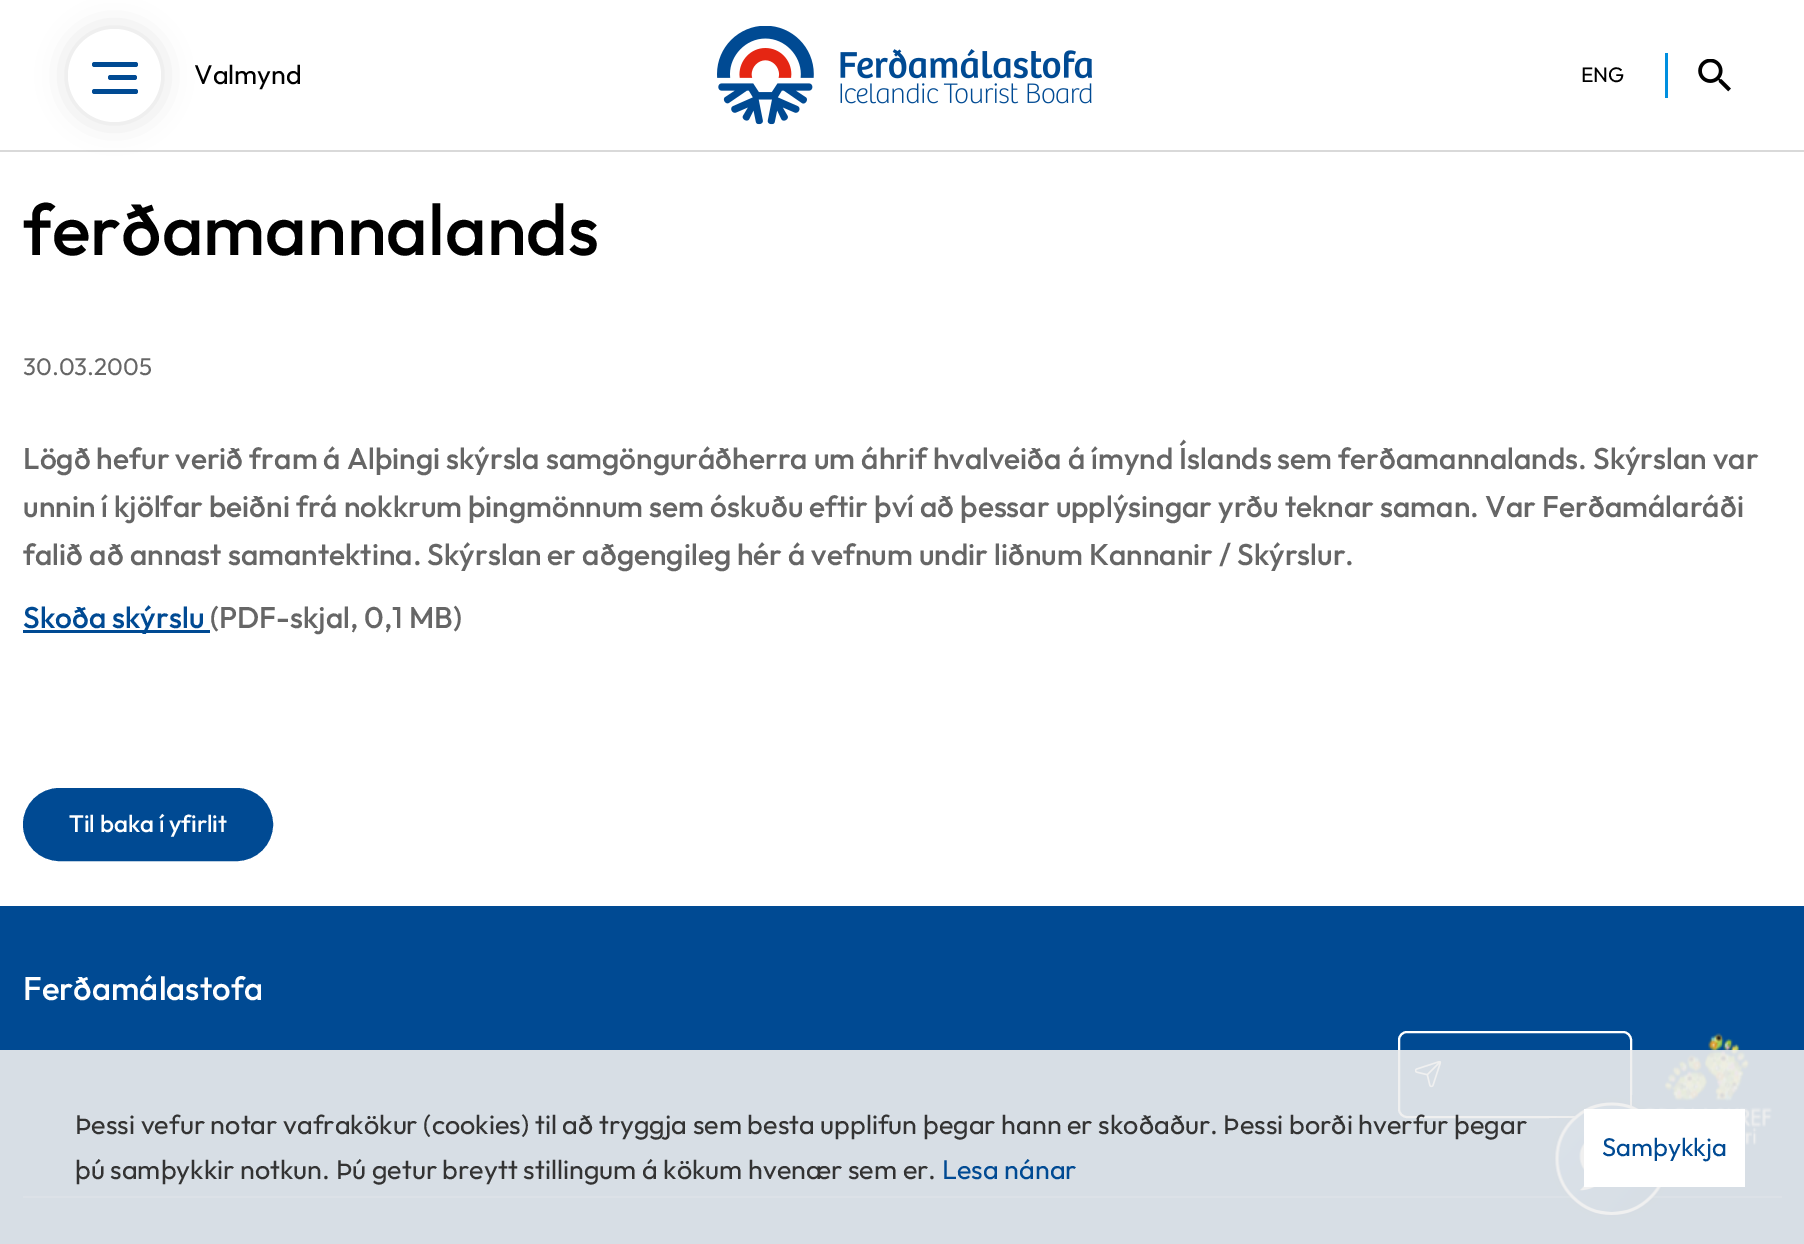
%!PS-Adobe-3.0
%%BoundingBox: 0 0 1804 1244
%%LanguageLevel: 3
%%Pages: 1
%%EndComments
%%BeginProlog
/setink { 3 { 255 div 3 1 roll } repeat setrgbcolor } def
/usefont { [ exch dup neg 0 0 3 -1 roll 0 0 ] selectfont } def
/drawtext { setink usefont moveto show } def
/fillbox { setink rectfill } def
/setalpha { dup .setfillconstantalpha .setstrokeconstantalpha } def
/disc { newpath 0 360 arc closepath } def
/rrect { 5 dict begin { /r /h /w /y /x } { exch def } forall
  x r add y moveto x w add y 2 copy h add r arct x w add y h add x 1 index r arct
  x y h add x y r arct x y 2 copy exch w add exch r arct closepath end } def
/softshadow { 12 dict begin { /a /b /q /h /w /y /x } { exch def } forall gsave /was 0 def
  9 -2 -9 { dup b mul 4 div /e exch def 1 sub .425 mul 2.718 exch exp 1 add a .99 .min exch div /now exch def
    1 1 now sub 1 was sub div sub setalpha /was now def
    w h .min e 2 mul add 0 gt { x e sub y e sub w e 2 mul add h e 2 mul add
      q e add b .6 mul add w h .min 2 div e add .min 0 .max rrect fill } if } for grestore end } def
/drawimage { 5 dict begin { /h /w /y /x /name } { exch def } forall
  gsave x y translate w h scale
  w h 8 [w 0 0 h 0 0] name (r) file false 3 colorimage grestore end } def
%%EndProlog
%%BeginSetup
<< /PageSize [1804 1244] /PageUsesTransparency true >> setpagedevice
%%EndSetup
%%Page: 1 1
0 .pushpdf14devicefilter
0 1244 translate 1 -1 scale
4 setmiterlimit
0 0 1804 1244 255 255 255 fillbox
0 150 1804 2 217 217 217 fillbox
0 0 0 setink
68 29 93 93 46.5 15 0.12 softshadow
255 255 255 setink
114.5 75.5 46.5 disc fill
0 74 147 setink
92 62 46 5 2.5 rrect fill
108 75 29 5 2.5 rrect fill
92 89 46 5 2.5 rrect fill
(Valmynd) 194 84 /Outfit-Regular 27 0 0 0 drawtext
(assets/img1.rgb) 717 26 375 99 drawimage
(ENG) 1581 82 /Outfit-Regular 21 0 0 0 drawtext
1665 53 3 45 0 143 223 fillbox
(assets/img2.rgb) 1698 59 33 33 drawimage
(ferðamannalands) 23 255 /Outfit-Medium 72 0 0 0 drawtext
(30.03.2005) 23 375 /Outfit-Regular 24 102 102 102 drawtext
(Lögð hefur verið fram á Alþingi skýrsla samgönguráðherra um áhrif hvalveiða á ímynd Íslands sem ferðamannalands. Skýrslan var) 23 469 /Outfit-Medium 30 102 102 102 drawtext
(unnin í kjölfar beiðni frá nokkrum þingmönnum sem óskuðu eftir því að þessar upplýsingar yrðu teknar saman. Var Ferðamálaráði) 23 517 /Outfit-Medium 30 102 102 102 drawtext
(falið að annast samantektina. Skýrslan er aðgengileg hér á vefnum undir liðnum Kannanir / Skýrslur.) 23 565 /Outfit-Medium 30 102 102 102 drawtext
23 630 187 3 0 74 147 fillbox
(Skoða skýrslu) 23 628 /Outfit-Medium 30 0 74 147 drawtext
(\(PDF-skjal, 0,1 MB\)) 210 628 /Outfit-Medium 30 102 102 102 drawtext
0 74 147 setink
24 789 248 71 35.5 rrect gsave fill grestore
2 setlinewidth
stroke
(Til baka í yfirlit) 69 832 /Outfit-Medium 24 255 255 255 drawtext
0 906 1804 338 0 74 147 fillbox
(Ferðamálastofa) 23 1000 /Outfit-Medium 33 255 255 255 drawtext
1399 1032 232 85 8 rrect stroke
(assets/img3.rgb) 1415 1061 27 27 drawimage
(assets/img4.rgb) 1644 1033 128 112 drawimage
23 1196 1759 2 51 110 169 fillbox
(assets/img5.rgb) 1549 1095 120 127 drawimage
0.9 setalpha
0 1050 1804 194 238 238 238 fillbox
1 setalpha
(Þessi vefur notar vafrakökur \(cookies\) til að tryggja sem besta upplifun þegar hann er skoðaður. Þessi borði hverfur þegar) 75 1134 /Outfit-Regular 27 51 51 51 drawtext
(þú samþykkir notkun. Þú getur breytt stillingum á kökum hvenær sem er.) 75 1179 /Outfit-Regular 27 51 51 51 drawtext
(Lesa nánar) 942 1179 /Outfit-Regular 27 0 74 147 drawtext
1584 1109 161 78 255 255 255 fillbox
(Samþykkja) 1602 1156 /Outfit-Regular 25.5 0 74 147 drawtext
.poppdf14devicefilter showpage
%%EOF
